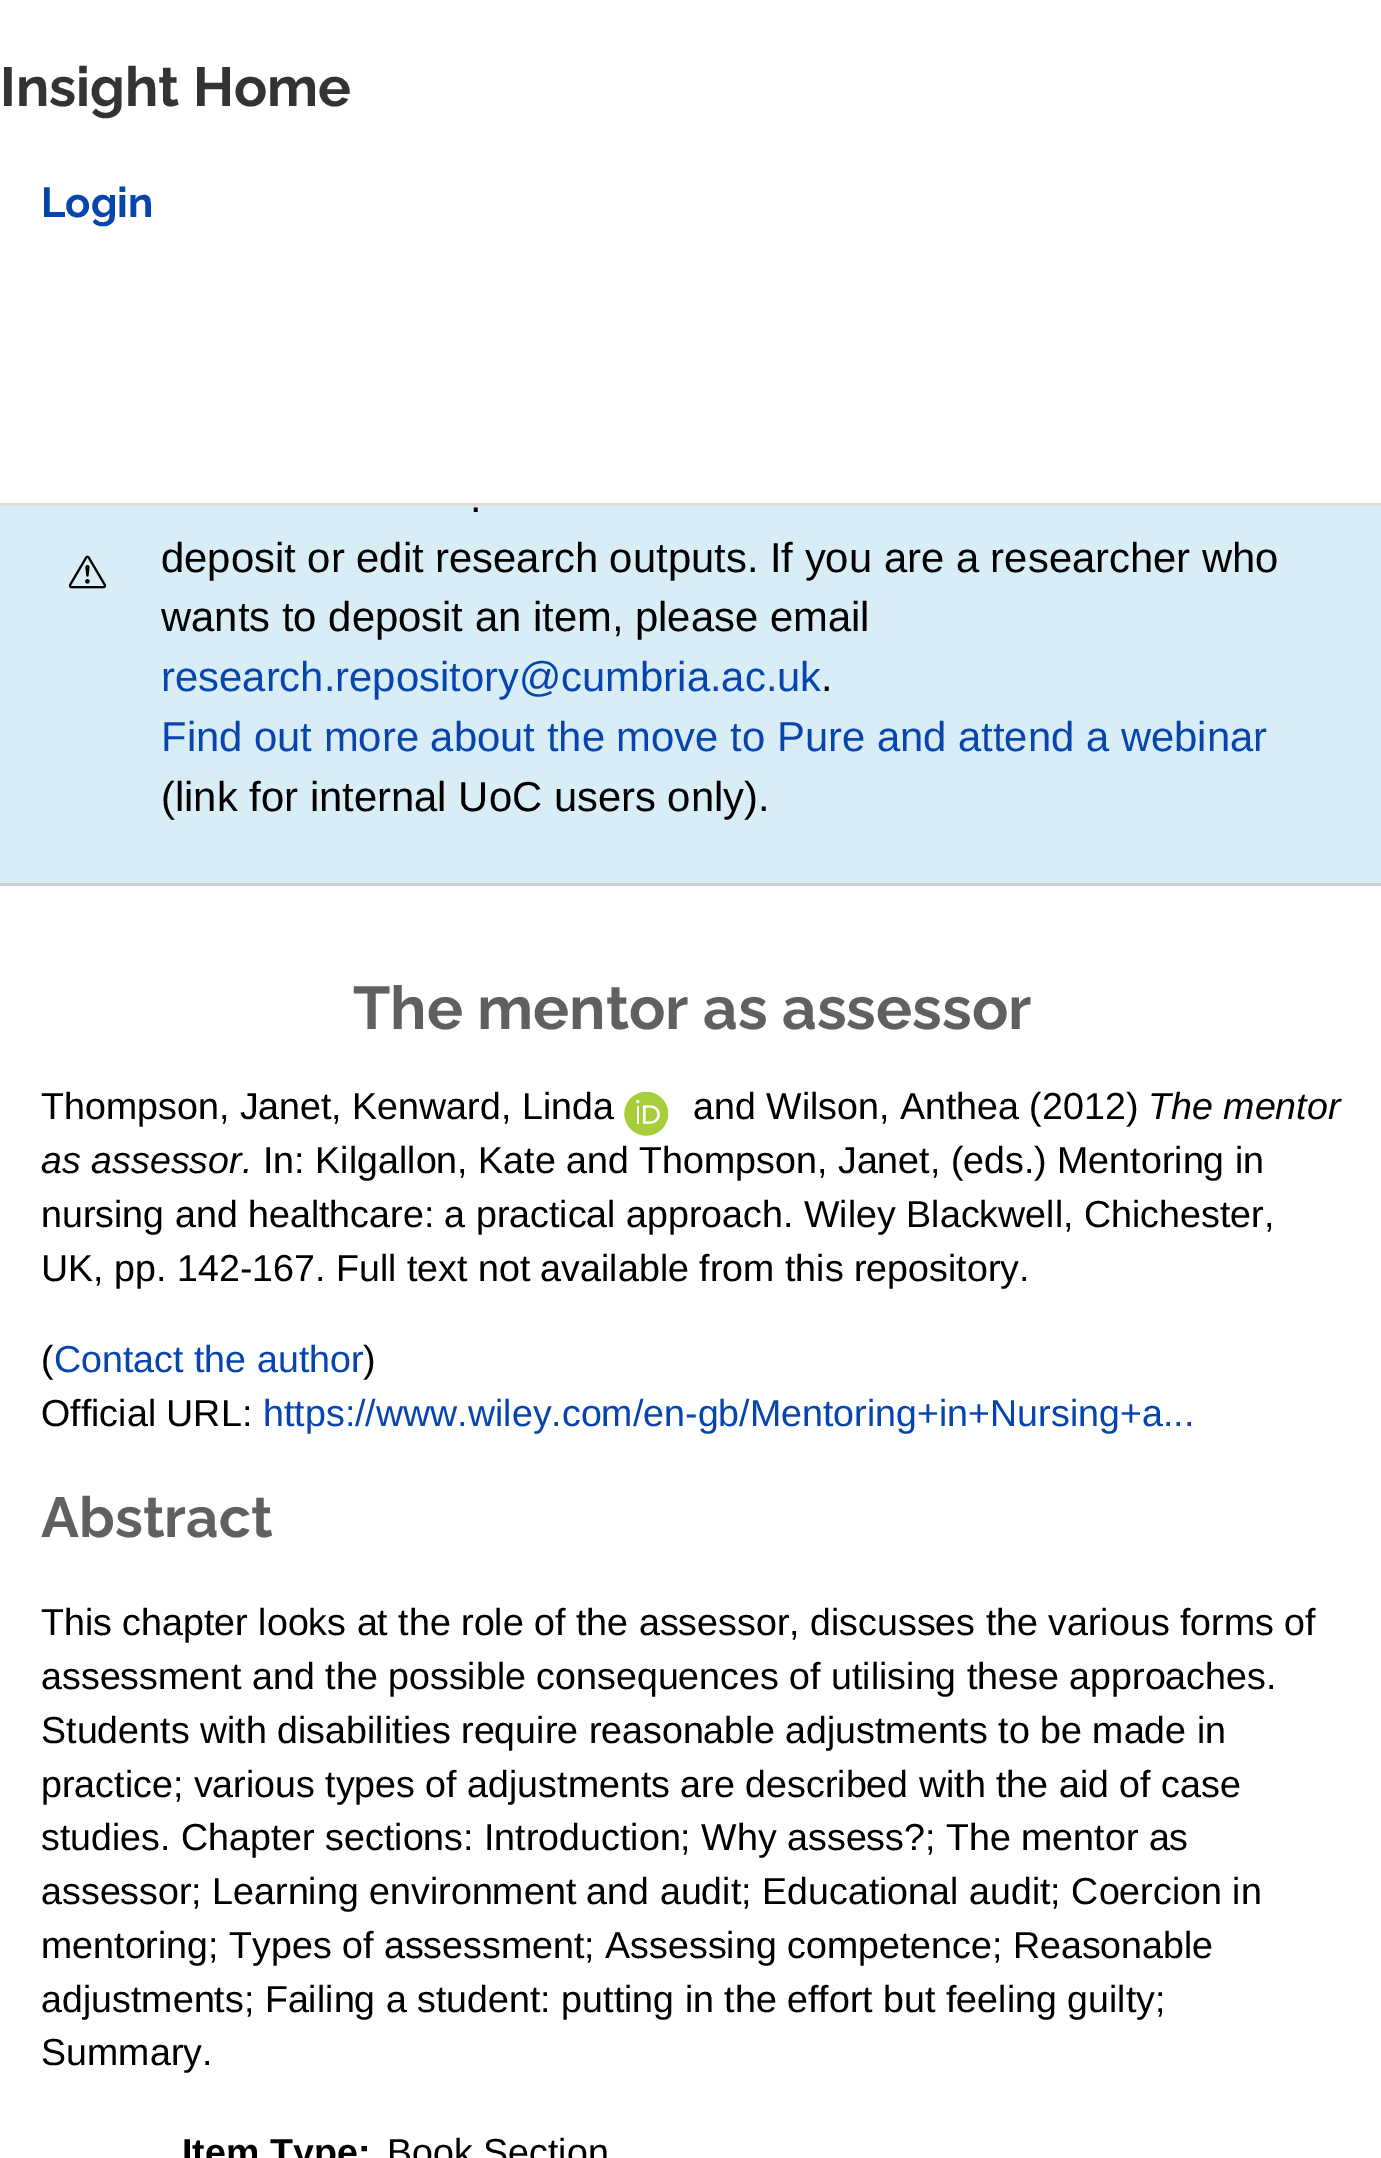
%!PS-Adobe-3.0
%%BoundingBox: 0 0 1381 2158
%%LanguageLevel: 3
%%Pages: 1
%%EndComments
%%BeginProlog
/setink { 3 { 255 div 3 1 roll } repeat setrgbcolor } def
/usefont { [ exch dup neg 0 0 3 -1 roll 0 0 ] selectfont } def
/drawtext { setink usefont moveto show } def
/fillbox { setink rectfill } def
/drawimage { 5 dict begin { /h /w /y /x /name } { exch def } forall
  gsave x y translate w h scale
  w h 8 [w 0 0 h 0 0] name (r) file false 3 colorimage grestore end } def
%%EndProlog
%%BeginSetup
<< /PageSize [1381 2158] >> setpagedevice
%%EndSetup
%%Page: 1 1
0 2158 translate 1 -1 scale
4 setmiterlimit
0 0 1381 2158 255 255 255 fillbox
0 503 1381 3 221 221 221 fillbox
(Insight Home) 0 106 /Raleway-Bold 55 51 51 51 drawtext
(Login) 41 217 /Raleway-Bold 41.8 6 69 173 drawtext
0 506 1381 377 217 237 247 fillbox
0 883 1381 3 208 208 208 fillbox
(assets/img1.rgb) 69 555 38 34 drawimage
(.) 470 512 /LiberationSans-Regular 41.8 0 0 0 drawtext
(deposit or edit research outputs. If you are a researcher who) 161 572 /LiberationSans-Regular 41.8 0 0 0 drawtext
(wants to deposit an item, please email) 161 631 /LiberationSans-Regular 41.8 0 0 0 drawtext
(research.repository@cumbria.ac.uk) 161 691 /LiberationSans-Regular 41.8 6 69 173 drawtext
(.) 821 691 /LiberationSans-Regular 41.8 0 0 0 drawtext
(Find out more about the move to Pure and attend a webinar) 161 751 /LiberationSans-Regular 41.8 6 69 173 drawtext
(\(link for internal UoC users only\).) 161 811 /LiberationSans-Regular 41.8 0 0 0 drawtext
(The mentor as assessor) 353 1029 /Raleway-Bold 60.25 96 96 96 drawtext
(Thompson, Janet, Kenward, Linda) 41 1119 /LiberationSans-Regular 37.6 0 0 0 drawtext
(assets/img2.rgb) 624 1092 44 44 drawimage
(and Wilson, Anthea \(2012\)) 693 1119 /LiberationSans-Regular 37.6 0 0 0 drawtext
(The mentor) 1148 1119 /LiberationSans-Italic 37.6 0 0 0 drawtext
(as assessor.) 41 1173 /LiberationSans-Italic 37.6 0 0 0 drawtext
(In: Kilgallon, Kate and Thompson, Janet, \(eds.\) Mentoring in) 263 1173 /LiberationSans-Regular 37.6 0 0 0 drawtext
(nursing and healthcare: a practical approach.) 41 1227 /LiberationSans-Regular 37.6 0 0 0 drawtext
(Wiley Blackwell, Chichester,) 804 1227 /LiberationSans-Regular 37.6 0 0 0 drawtext
(UK, pp. 142-167. Full text not available from this repository.) 41 1281 /LiberationSans-Regular 37.6 0 0 0 drawtext
(\() 41 1372 /LiberationSans-Regular 37.6 0 0 0 drawtext
(Contact the author) 54 1372 /LiberationSans-Regular 37.6 6 69 173 drawtext
(\)) 363 1372 /LiberationSans-Regular 37.6 0 0 0 drawtext
(Official URL:) 41 1426 /LiberationSans-Regular 37.6 0 0 0 drawtext
(https://www.wiley.com/en-gb/Mentoring+in+Nursing+a...) 263 1426 /LiberationSans-Regular 37.6 6 69 173 drawtext
(Abstract) 41 1537 /Raleway-Bold 56.5 96 96 96 drawtext
(This chapter looks at the role of the assessor, discusses the various forms of) 41 1635 /LiberationSans-Regular 37.6 0 0 0 drawtext
(assessment and the possible consequences of utilising these approaches.) 41 1689 /LiberationSans-Regular 37.6 0 0 0 drawtext
(Students with disabilities require reasonable adjustments to be made in) 41 1743 /LiberationSans-Regular 37.6 0 0 0 drawtext
(practice; various types of adjustments are described with the aid of case) 41 1797 /LiberationSans-Regular 37.6 0 0 0 drawtext
(studies. Chapter sections: Introduction; Why assess?; The mentor as) 41 1850 /LiberationSans-Regular 37.6 0 0 0 drawtext
(assessor; Learning environment and audit; Educational audit; Coercion in) 41 1904 /LiberationSans-Regular 37.6 0 0 0 drawtext
(mentoring; Types of assessment; Assessing competence; Reasonable) 41 1958 /LiberationSans-Regular 37.6 0 0 0 drawtext
(adjustments; Failing a student: putting in the effort but feeling guilty;) 41 2012 /LiberationSans-Regular 37.6 0 0 0 drawtext
(Summary.) 41 2065 /LiberationSans-Regular 37.6 0 0 0 drawtext
(Item Type:) 182 2165 /LiberationSans-Bold 37.6 0 0 0 drawtext
(Book Section) 387 2165 /LiberationSans-Regular 37.6 0 0 0 drawtext
showpage
%%EOF
